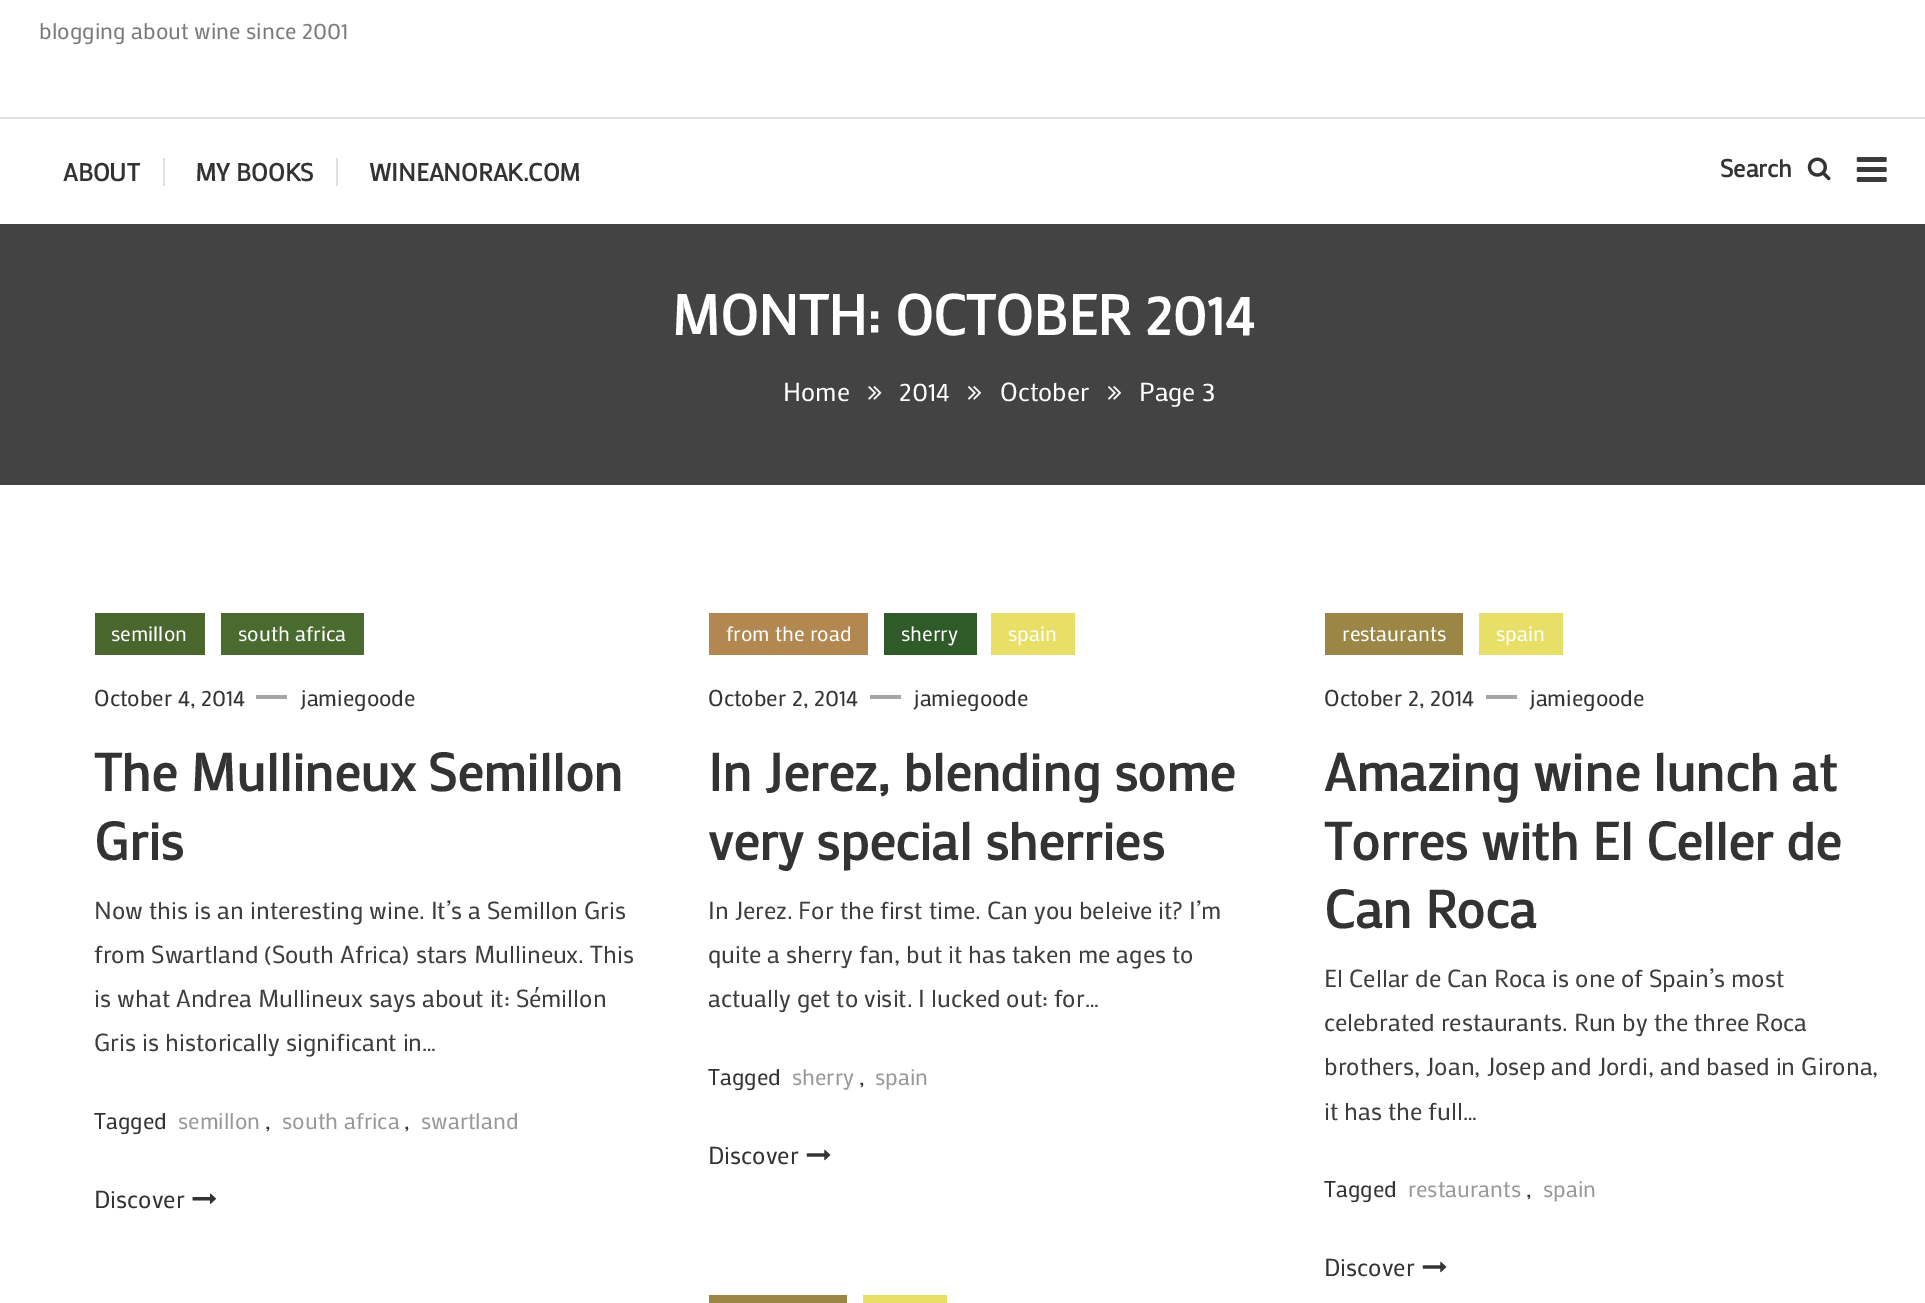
%!PS-Adobe-3.0
%%BoundingBox: 0 0 1925 1303
%%LanguageLevel: 3
%%Pages: 1
%%EndComments
%%BeginProlog
/setink { 3 { 255 div 3 1 roll } repeat setrgbcolor } def
/usefont { [ exch dup neg 0 0 3 -1 roll 0 0 ] selectfont } def
/drawtext { setink usefont moveto show } def
/fillbox { setink rectfill } def
/drawimage { 5 dict begin { /h /w /y /x /name } { exch def } forall
  gsave x y translate w h scale
  w h 8 [w 0 0 h 0 0] name (r) file false 3 colorimage grestore end } def
%%EndProlog
%%BeginSetup
<< /PageSize [1925 1303] >> setpagedevice
%%EndSetup
%%Page: 1 1
0 1303 translate 1 -1 scale
4 setmiterlimit
0 0 1925 1303 255 255 255 fillbox
(blogging about wine since 2001) 39 39 /Mako-Regular 22.75 123 123 123 drawtext
0 117 1925 2 225 225 225 fillbox
(ABOUT) 63 181 /Mako-Bold 24.5 51 51 51 drawtext
163 158 2 28 225 225 225 fillbox
(MY BOOKS) 195 181 /Mako-Bold 24.5 51 51 51 drawtext
336 158 2 28 225 225 225 fillbox
(WINEANORAK.COM) 369 181 /Mako-Bold 24.5 51 51 51 drawtext
(Search) 1720 177 /Mako-Bold 24.5 51 51 51 drawtext
(assets/img1.rgb) 1807 157 24 24 drawimage
(assets/img2.rgb) 1856 157 31 25 drawimage
0 224 1925 261 67 67 67 fillbox
(MONTH: OCTOBER 2014) 671 335 /Mako-Bold 56 255 255 255 drawtext
(Home) 783 401 /Mako-Regular 26 255 255 255 drawtext
(assets/img3.rgb) 868 386 14 14 drawimage
(2014) 899 401 /Mako-Regular 26 255 255 255 drawtext
(assets/img4.rgb) 968 386 14 14 drawimage
(October) 1000 401 /Mako-Regular 26 255 255 255 drawtext
(assets/img4.rgb) 1108 386 14 14 drawimage
(Page 3) 1139 401 /Mako-Regular 26 255 255 255 drawtext
95 613 110 42 73 102 45 fillbox
(semillon) 111 641 /Mako-Regular 21 255 255 255 drawtext
221 613 143 42 73 107 48 fillbox
(south africa) 238 641 /Mako-Regular 21 255 255 255 drawtext
(October 4, 2014) 94 706 /Mako-Regular 22.75 51 51 51 drawtext
256 695 31 4 166 166 166 fillbox
(jamiegoode) 301 706 /Mako-Regular 22.75 51 51 51 drawtext
(The Mullineux Semillon) 94 791 /Mako-Bold 52.5 51 51 51 drawtext
(Gris) 94 860 /Mako-Bold 52.5 51 51 51 drawtext
(Now this is an interesting wine. It’s a Semillon Gris) 94 919 /Mako-Regular 24.5 61 61 61 drawtext
(from Swartland \(South Africa\) stars Mullineux. This) 94 963 /Mako-Regular 24.5 61 61 61 drawtext
(is what Andrea Mullineux says about it: Sémillon) 94 1007 /Mako-Regular 24.5 61 61 61 drawtext
(Gris is historically significant in…) 94 1051 /Mako-Regular 24.5 61 61 61 drawtext
(Tagged) 94 1129 /Mako-Regular 22.75 51 51 51 drawtext
(semillon) 178 1129 /Mako-Regular 22.75 153 153 153 drawtext
(,) 265 1129 /Mako-Regular 22.75 51 51 51 drawtext
(south africa) 282 1129 /Mako-Regular 22.75 153 153 153 drawtext
(,) 404 1129 /Mako-Regular 22.75 51 51 51 drawtext
(swartland) 421 1129 /Mako-Regular 22.75 153 153 153 drawtext
(Discover) 94 1208 /Mako-Regular 24.5 51 51 51 drawtext
(assets/img5.rgb) 192 1193 25 11 drawimage
709 613 159 42 178 135 80 fillbox
(from the road) 726 641 /Mako-Regular 21 255 255 255 drawtext
884 613 93 42 47 91 41 fillbox
(sherry) 901 641 /Mako-Regular 21 255 255 255 drawtext
991 613 84 42 232 223 104 fillbox
(spain) 1008 641 /Mako-Regular 21 255 255 255 drawtext
(October 2, 2014) 708 706 /Mako-Regular 22.75 51 51 51 drawtext
870 695 31 4 166 166 166 fillbox
(jamiegoode) 914 706 /Mako-Regular 22.75 51 51 51 drawtext
(In Jerez, blending some) 708 791 /Mako-Bold 52.5 51 51 51 drawtext
(very special sherries) 708 860 /Mako-Bold 52.5 51 51 51 drawtext
(In Jerez. For the first time. Can you beleive it? I’m) 708 919 /Mako-Regular 24.5 61 61 61 drawtext
(quite a sherry fan, but it has taken me ages to) 708 963 /Mako-Regular 24.5 61 61 61 drawtext
(actually get to visit. I lucked out: for…) 708 1007 /Mako-Regular 24.5 61 61 61 drawtext
(Tagged) 708 1085 /Mako-Regular 22.75 51 51 51 drawtext
(sherry) 792 1085 /Mako-Regular 22.75 153 153 153 drawtext
(,) 859 1085 /Mako-Regular 22.75 51 51 51 drawtext
(spain) 875 1085 /Mako-Regular 22.75 153 153 153 drawtext
(Discover) 708 1164 /Mako-Regular 24.5 51 51 51 drawtext
(assets/img6.rgb) 806 1149 25 12 drawimage
1325 613 138 42 155 134 69 fillbox
(restaurants) 1342 641 /Mako-Regular 21 255 255 255 drawtext
1479 613 84 42 232 223 104 fillbox
(spain) 1496 641 /Mako-Regular 21 255 255 255 drawtext
(October 2, 2014) 1324 706 /Mako-Regular 22.75 51 51 51 drawtext
1486 695 31 4 166 166 166 fillbox
(jamiegoode) 1530 706 /Mako-Regular 22.75 51 51 51 drawtext
(Amazing wine lunch at) 1324 791 /Mako-Bold 52.5 51 51 51 drawtext
(Torres with El Celler de) 1324 860 /Mako-Bold 52.5 51 51 51 drawtext
(Can Roca) 1324 928 /Mako-Bold 52.5 51 51 51 drawtext
(El Cellar de Can Roca is one of Spain’s most) 1324 987 /Mako-Regular 24.5 61 61 61 drawtext
(celebrated restaurants. Run by the three Roca) 1324 1031 /Mako-Regular 24.5 61 61 61 drawtext
(brothers, Joan, Josep and Jordi, and based in Girona,) 1324 1075 /Mako-Regular 24.5 61 61 61 drawtext
(it has the full…) 1324 1120 /Mako-Regular 24.5 61 61 61 drawtext
(Tagged) 1324 1197 /Mako-Regular 22.75 51 51 51 drawtext
(restaurants) 1408 1197 /Mako-Regular 22.75 153 153 153 drawtext
(,) 1526 1197 /Mako-Regular 22.75 51 51 51 drawtext
(spain) 1543 1197 /Mako-Regular 22.75 153 153 153 drawtext
(Discover) 1324 1276 /Mako-Regular 24.5 51 51 51 drawtext
(assets/img6.rgb) 1422 1261 25 12 drawimage
709 1295 138 8 155 134 69 fillbox
863 1295 84 8 232 223 104 fillbox
showpage
%%EOF
